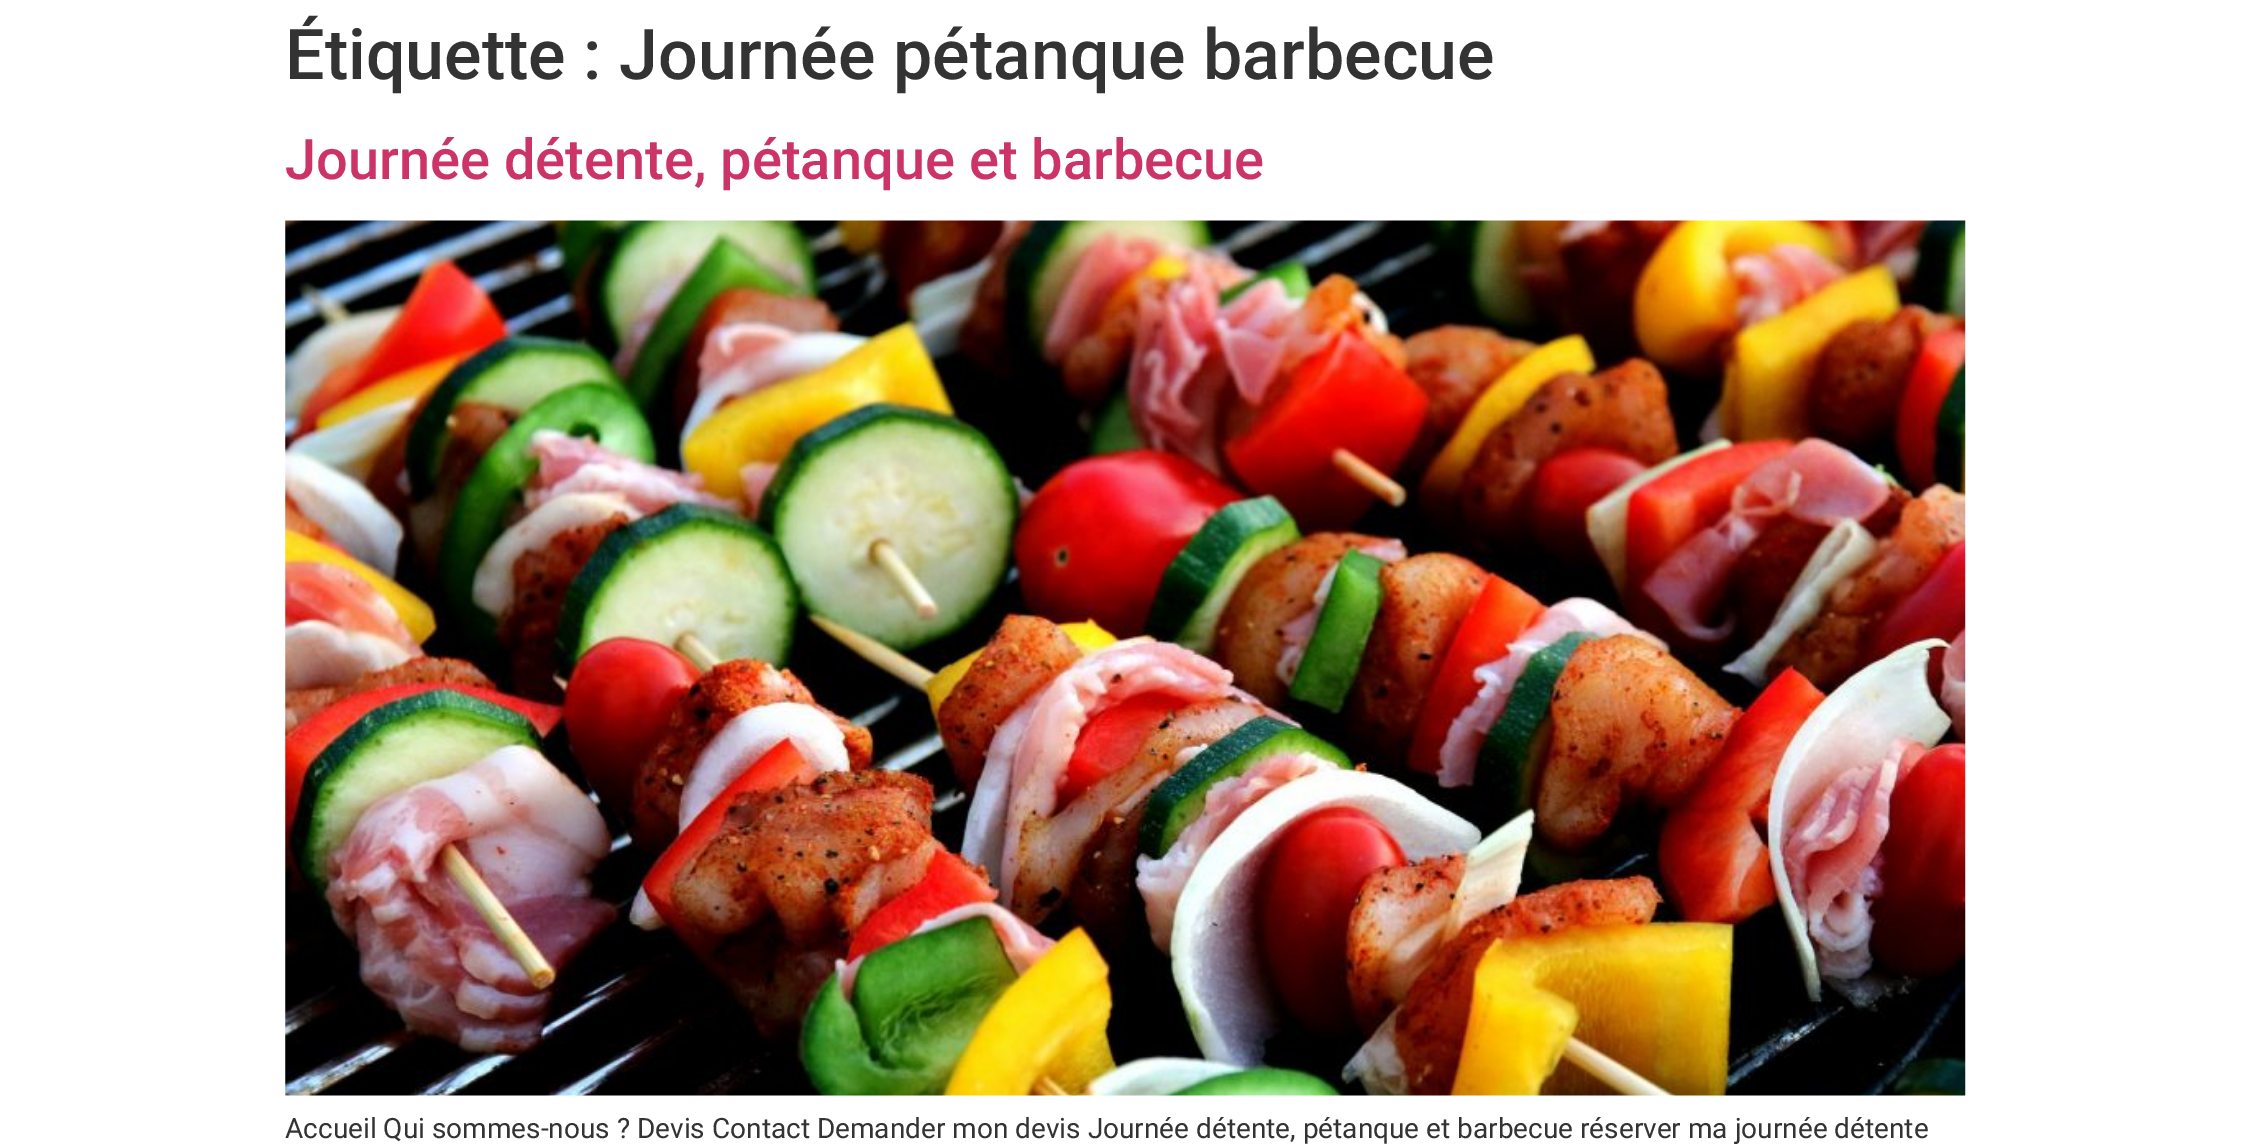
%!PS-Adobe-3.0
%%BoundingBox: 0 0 2250 1147
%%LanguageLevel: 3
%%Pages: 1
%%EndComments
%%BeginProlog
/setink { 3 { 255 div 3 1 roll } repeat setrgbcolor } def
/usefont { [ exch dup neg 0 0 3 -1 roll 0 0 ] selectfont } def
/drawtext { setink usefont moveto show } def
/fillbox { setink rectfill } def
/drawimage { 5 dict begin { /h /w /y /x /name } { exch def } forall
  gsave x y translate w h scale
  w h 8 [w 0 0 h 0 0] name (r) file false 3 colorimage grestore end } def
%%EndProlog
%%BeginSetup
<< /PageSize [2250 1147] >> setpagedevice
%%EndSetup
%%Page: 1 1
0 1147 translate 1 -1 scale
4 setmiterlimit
0 0 2250 1147 255 255 255 fillbox
(Étiquette : Journée pétanque barbecue) 285 79 /Roboto-Medium 70 51 51 51 drawtext
(Journée détente, pétanque et barbecue) 285 179 /Roboto-Medium 56 204 51 102 drawtext
(assets/img1.rgb) 285 220 1681 876 drawimage
(Accueil Qui sommes-nous ? Devis Contact Demander mon devis Journée détente, pétanque et barbecue réserver ma journée détente) 285 1138 /Roboto-Regular 28 51 51 51 drawtext
showpage
%%EOF
